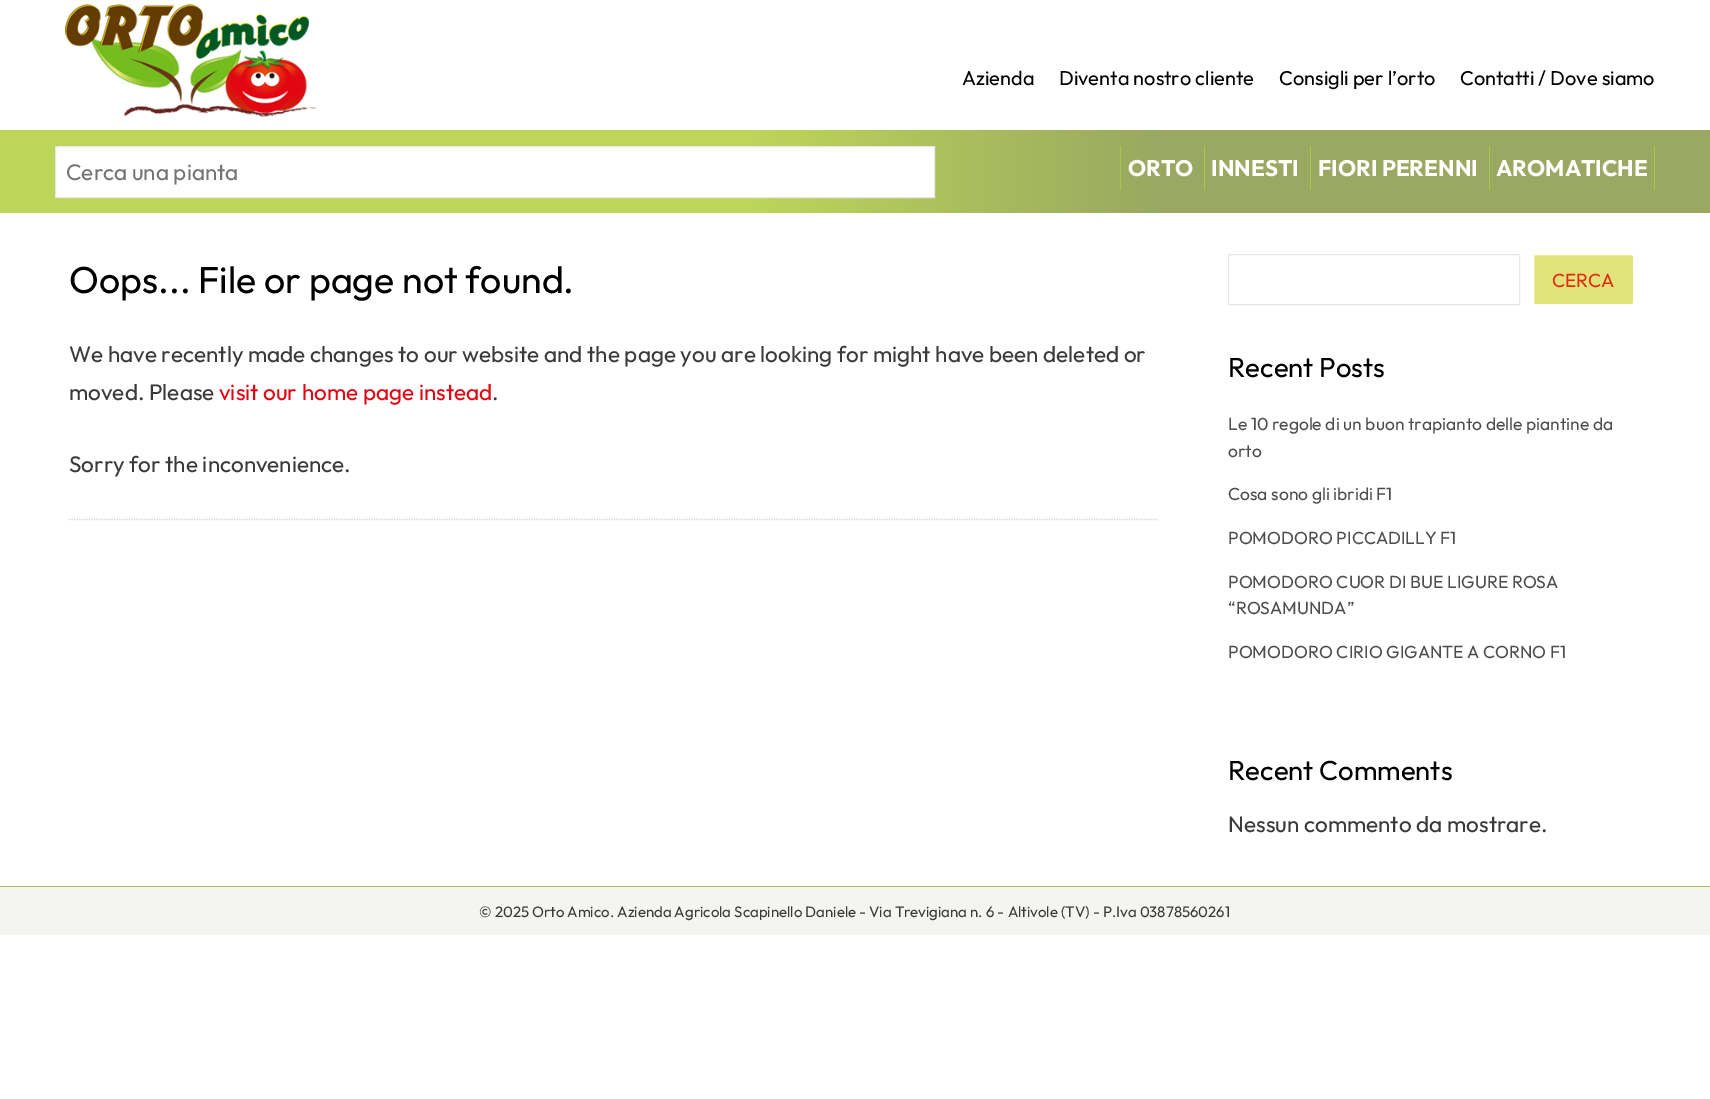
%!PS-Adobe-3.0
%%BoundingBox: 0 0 1710 1099
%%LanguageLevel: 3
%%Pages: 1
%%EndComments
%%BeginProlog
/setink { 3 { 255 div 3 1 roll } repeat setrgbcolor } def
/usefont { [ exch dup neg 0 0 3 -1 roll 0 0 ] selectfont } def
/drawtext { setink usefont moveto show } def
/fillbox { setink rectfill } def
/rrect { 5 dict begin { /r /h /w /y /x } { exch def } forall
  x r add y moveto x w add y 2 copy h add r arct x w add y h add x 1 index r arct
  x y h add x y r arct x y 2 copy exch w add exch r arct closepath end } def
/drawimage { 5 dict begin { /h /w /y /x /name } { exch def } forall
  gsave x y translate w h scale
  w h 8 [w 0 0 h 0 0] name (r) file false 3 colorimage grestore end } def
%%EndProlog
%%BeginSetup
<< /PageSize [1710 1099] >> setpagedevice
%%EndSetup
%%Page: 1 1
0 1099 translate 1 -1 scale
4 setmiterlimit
0 0 1710 1099 255 255 255 fillbox
(assets/img1.rgb) 65 4 251 113 drawimage
(Azienda) 962 85 /Outfit-Regular 20 0 0 0 drawtext
(Diventa nostro cliente) 1059 85 /Outfit-Regular 20 0 0 0 drawtext
(Consigli per l’orto) 1279 85 /Outfit-Regular 20 0 0 0 drawtext
(Contatti / Dove siamo) 1460 85 /Outfit-Regular 20 0 0 0 drawtext
gsave 0 130 moveto 1710 130 lineto 1710 213 lineto 0 213 lineto closepath clip newpath
<< /ShadingType 2 /ColorSpace /DeviceRGB /Coords [0 171 1710 171] /Extend [true true] /Function << /FunctionType 3 /Domain [0 1] /Functions [<< /FunctionType 2 /Domain [0 1] /C0 [0.741 0.835 0.349] /C1 [0.741 0.835 0.349] /N 1 >> << /FunctionType 2 /Domain [0 1] /C0 [0.741 0.835 0.349] /C1 [0.604 0.659 0.38] /N 1 >> << /FunctionType 2 /Domain [0 1] /C0 [0.604 0.659 0.38] /C1 [0.604 0.659 0.38] /N 1 >>] /Bounds [0.44 0.68] /Encode [0 1 0 1 0 1] >> >> shfill grestore
255 255 255 setink
55.5 146.5 moveto 934.5 146.5 lineto 934.5 197.5 lineto 55.5 197.5 lineto closepath gsave fill grestore
230 230 230 setink
stroke
(Cerca una pianta) 66 180 /Outfit-Regular 22.5 117 117 117 drawtext
1654 146 1 44 172 196 75 fillbox
1120 146 1 44 172 196 75 fillbox
(ORTO) 1128 176 /Outfit-Bold 22.5 255 255 255 drawtext
1204 146 1 44 172 196 75 fillbox
(INNESTI) 1211 176 /Outfit-Bold 22.5 255 255 255 drawtext
1310 146 1 44 172 196 75 fillbox
(FIORI PERENNI) 1318 176 /Outfit-Bold 22.5 255 255 255 drawtext
1489 146 1 44 172 196 75 fillbox
(AROMATICHE) 1496 176 /Outfit-Bold 22.5 255 255 255 drawtext
212 212 212 setink
1.2 setlinewidth
[1.25 1.25] 0 setdash
69 519.5 moveto 1157.5 519.5 lineto stroke
(Oops... File or page not found.) 69 293 /Outfit-Regular 37.5 0 0 0 drawtext
(We have recently made changes to our website and the page you are looking for might have been deleted or) 69 362 /Outfit-Regular 22.5 58 58 58 drawtext
(moved. Please) 69 400 /Outfit-Regular 22.5 58 58 58 drawtext
(visit our home page instead) 219 400 /Outfit-Regular 22.5 226 5 18 drawtext
(.) 492 400 /Outfit-Regular 22.5 58 58 58 drawtext
(Sorry for the inconvenience.) 69 472 /Outfit-Regular 22.5 58 58 58 drawtext
230 230 230 setink
1 setlinewidth
[] 0 setdash
1228.5 254.5 291 50 rectstroke
225 228 123 setink
1533.5 254.5 100 50 2 rrect gsave fill grestore
255 255 255 setink
stroke
(CERCA) 1552 287 /Outfit-Regular 19 227 43 15 drawtext
(Recent Posts) 1228 377 /Outfit-Regular 27.5 0 0 0 drawtext
(Le 10 regole di un buon trapianto delle piantine da) 1228 430 /Outfit-Regular 17.5 77 77 77 drawtext
(orto) 1228 457 /Outfit-Regular 17.5 77 77 77 drawtext
(Cosa sono gli ibridi F1) 1228 500 /Outfit-Regular 17.5 77 77 77 drawtext
(POMODORO PICCADILLY F1) 1228 544 /Outfit-Regular 17.5 77 77 77 drawtext
(POMODORO CUOR DI BUE LIGURE ROSA) 1228 588 /Outfit-Regular 17.5 77 77 77 drawtext
(“ROSAMUNDA”) 1228 614 /Outfit-Regular 17.5 77 77 77 drawtext
(POMODORO CIRIO GIGANTE A CORNO F1) 1228 658 /Outfit-Regular 17.5 77 77 77 drawtext
(Recent Comments) 1228 780 /Outfit-Regular 27.5 0 0 0 drawtext
(Nessun commento da mostrare.) 1228 832 /Outfit-Regular 22.5 58 58 58 drawtext
0 887 1710 48 244 244 241 fillbox
0 886 1710 1 170 189 93 fillbox
(© 2025 Orto Amico. Azienda Agricola Scapinello Daniele - Via Trevigiana n. 6 - Altivole \(TV\) - P.Iva 03878560261) 479 917 /Outfit-Regular 15 58 58 58 drawtext
showpage
%%EOF
